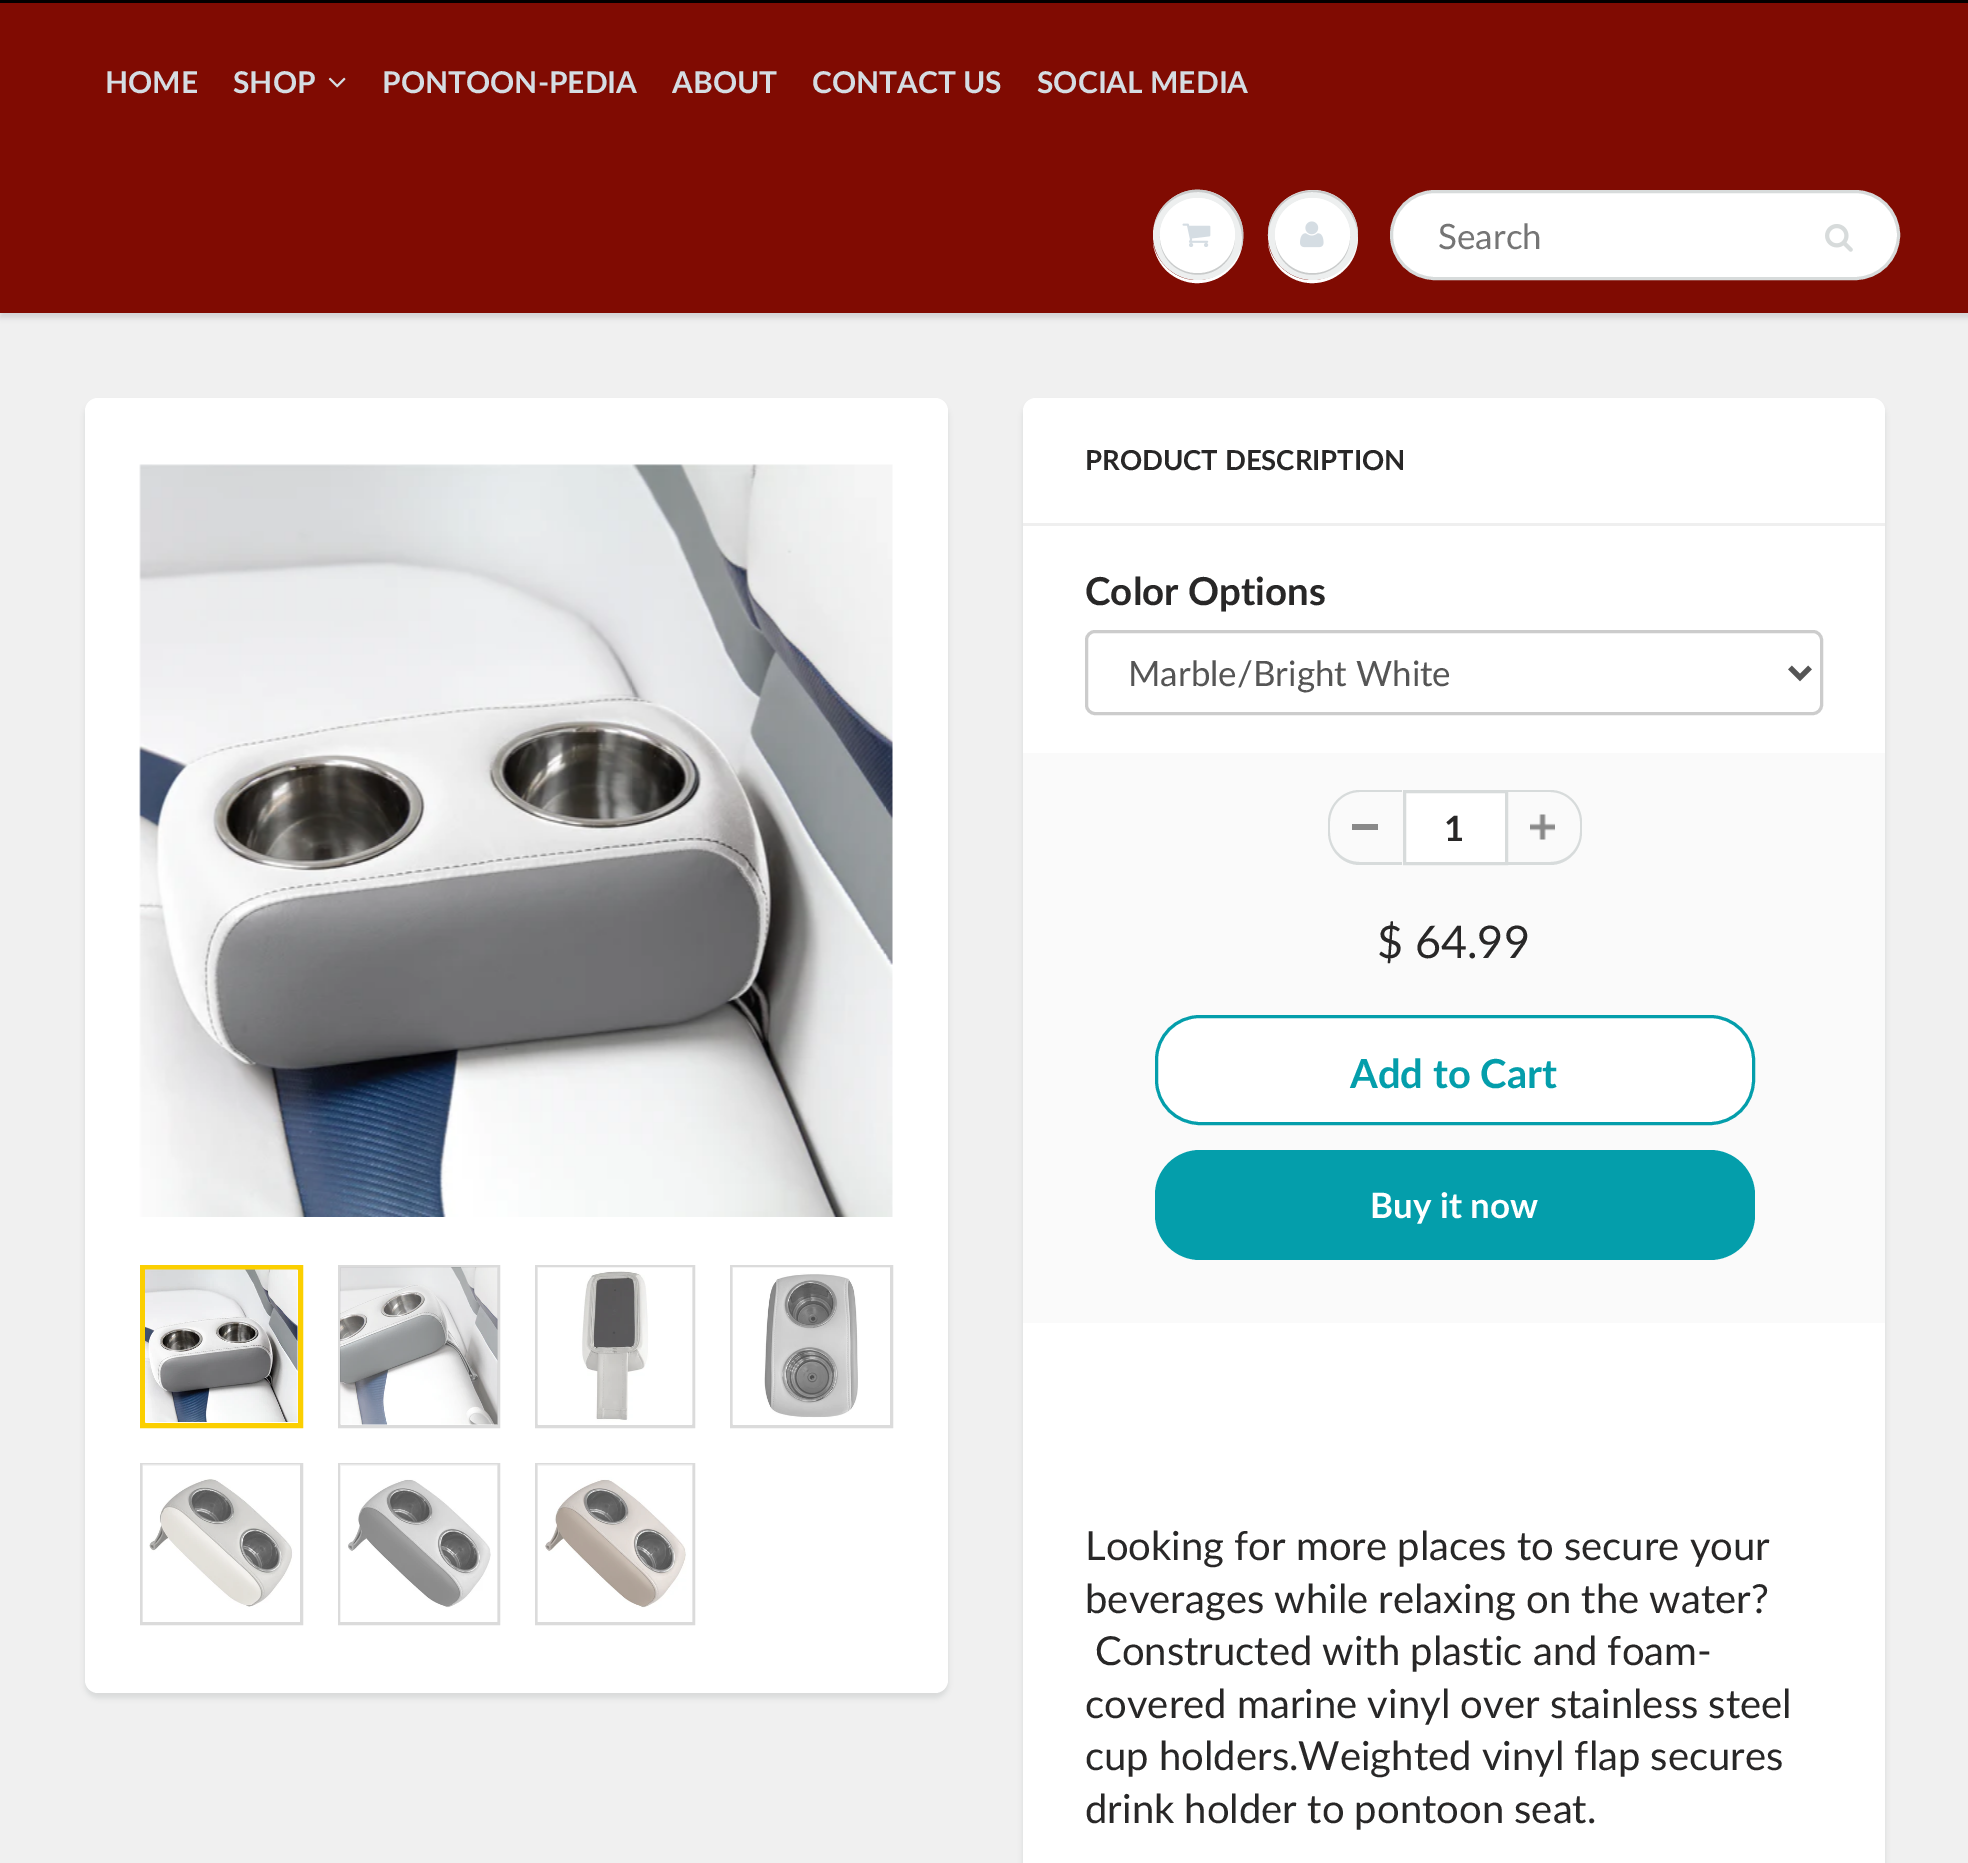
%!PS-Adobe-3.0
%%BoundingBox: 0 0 1968 1863
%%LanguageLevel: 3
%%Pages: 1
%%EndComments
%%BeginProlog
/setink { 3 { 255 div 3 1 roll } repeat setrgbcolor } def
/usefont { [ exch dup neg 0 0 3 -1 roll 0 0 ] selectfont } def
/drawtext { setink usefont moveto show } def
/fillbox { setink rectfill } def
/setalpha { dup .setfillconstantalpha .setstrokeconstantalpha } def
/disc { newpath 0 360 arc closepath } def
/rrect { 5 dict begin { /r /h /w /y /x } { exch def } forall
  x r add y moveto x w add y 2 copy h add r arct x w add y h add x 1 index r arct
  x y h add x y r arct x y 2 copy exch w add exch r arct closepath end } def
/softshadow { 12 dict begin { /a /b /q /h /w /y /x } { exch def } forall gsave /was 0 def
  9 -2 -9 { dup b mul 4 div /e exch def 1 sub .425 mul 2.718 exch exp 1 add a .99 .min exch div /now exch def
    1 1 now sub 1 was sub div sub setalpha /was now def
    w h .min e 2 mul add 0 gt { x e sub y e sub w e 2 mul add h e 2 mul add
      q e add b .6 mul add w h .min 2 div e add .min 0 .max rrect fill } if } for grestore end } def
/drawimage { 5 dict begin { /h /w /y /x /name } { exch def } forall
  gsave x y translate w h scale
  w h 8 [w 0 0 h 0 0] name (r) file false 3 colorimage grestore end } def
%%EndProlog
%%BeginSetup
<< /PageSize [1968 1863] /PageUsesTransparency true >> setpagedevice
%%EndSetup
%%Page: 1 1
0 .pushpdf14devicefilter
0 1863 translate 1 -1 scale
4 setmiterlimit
0 0 1968 1863 240 240 240 fillbox
11 25 28 setink
0 5 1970 313 0 2.5 0.12 softshadow
0 3 1968 310 128 11 2 fillbox
0 0 1968 3 3 0 0 fillbox
(HOME) 105 93 /Lato-Bold 30 213 221 227 drawtext
(SHOP) 233 93 /Lato-Bold 30 213 221 227 drawtext
(assets/img1.rgb) 328 77 18 11 drawimage
(PONTOON-PEDIA) 382 93 /Lato-Bold 30 213 221 227 drawtext
(ABOUT) 672 93 /Lato-Bold 30 213 221 227 drawtext
(CONTACT US) 812 93 /Lato-Bold 30 213 221 227 drawtext
(SOCIAL MEDIA) 1037 93 /Lato-Bold 30 213 221 227 drawtext
255 255 255 setink
1153 244 moveto 1155 255 1160 265 1168 272 curveto 1201 300 1250 271 1242 229 curveto 1247 269 1200 296 1169 270 curveto 1161 263 1155 254 1153 244 curveto closepath fill
237 239 239 setink
1198 235 45 disc fill
201 203 203 setink
1198 192 moveto 1228 192 1249 225 1240 252 curveto 1257 211 1207 171 1171 199 curveto 1163 205 1157 213 1155 223 curveto 1161 205 1178 192 1198 192 curveto closepath fill
1235 236 moveto 1234 256 1218 272 1198 272 curveto 1177 272 1161 256 1160 236 curveto 1159 274 1208 289 1229 258 curveto 1233 252 1235 244 1235 236 curveto closepath fill
255 255 255 setink
1197.5 235.5 37.5 disc fill
1198 200 moveto 1218 200 1234 216 1235 237 curveto 1235 229 1233 221 1229 215 curveto 1208 184 1159 199 1160 237 curveto 1161 216 1177 200 1198 200 curveto closepath fill
(assets/img2.rgb) 1182 223 29 24 drawimage
1268 244 moveto 1270 255 1275 265 1283 272 curveto 1316 300 1365 271 1357 229 curveto 1362 269 1315 296 1284 270 curveto 1276 263 1270 254 1268 244 curveto closepath fill
237 239 239 setink
1313 235 45 disc fill
201 203 203 setink
1312 192 moveto 1337 192 1357 212 1358 237 curveto 1358 227 1356 218 1350 210 curveto 1325 173 1267 192 1268 236 curveto 1269 212 1288 192 1312 192 curveto closepath fill
1350 236 moveto 1349 256 1333 272 1312 272 curveto 1292 272 1276 256 1275 236 curveto 1275 244 1277 252 1281 258 curveto 1302 289 1351 274 1350 236 curveto closepath fill
255 255 255 setink
1312.5 235.5 37.5 disc fill
1312 200 moveto 1333 200 1349 216 1350 237 curveto 1351 199 1302 184 1281 215 curveto 1277 221 1275 229 1275 237 curveto 1276 216 1292 200 1312 200 curveto closepath fill
(assets/img3.rgb) 1300 221 24 27 drawimage
1391.5 191.5 507 87 43.5 rrect gsave fill grestore
215 219 219 setink
3 setlinewidth
stroke
(Search) 1438 249 /Lato-Regular 35 117 117 117 drawtext
(assets/img4.rgb) 1825 224 28 28 drawimage
11 25 28 setink
85 403 863 1295 13 2.5 0.1 softshadow
255 255 255 setink
85 398 863 1295 13 rrect fill
(assets/img5.rgb) 139 464 754 753 drawimage
251 207 0 setink
5 setlinewidth
142.5 1267.5 158 158 rectstroke
(assets/img6.rgb) 145 1269 153 153 drawimage
219 219 219 setink
3 setlinewidth
339.5 1266.5 159 160 rectstroke
(assets/img7.rgb) 340 1267 158 158 drawimage
536.5 1266.5 157 160 rectstroke
(assets/img8.rgb) 537 1267 156 158 drawimage
731.5 1266.5 160 160 rectstroke
(assets/img9.rgb) 732 1267 158 158 drawimage
141.5 1464.5 160 159 rectstroke
(assets/img10.rgb) 142 1464 158 158 drawimage
339.5 1464.5 159 159 rectstroke
(assets/img11.rgb) 340 1464 158 158 drawimage
536.5 1464.5 157 159 rectstroke
(assets/img12.rgb) 537 1464 156 158 drawimage
11 25 28 setink
1023 403 862 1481 13 2.5 0.1 softshadow
255 255 255 setink
1023 398 862 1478 13 rrect fill
1023 523 862 3 239 239 239 fillbox
(PRODUCT DESCRIPTION) 1085 470 /Lato-Bold 27.5 40 39 39 drawtext
(Color Options) 1085 605 /Lato-Bold 38.5 40 39 39 drawtext
204 204 204 setink
1086.5 631.5 735 82 8.5 rrect stroke
85 85 85 setink
5 setlinewidth
1790 667.5 moveto 1800 677.5 lineto 1810 667.5 lineto stroke
(Marble/Bright White) 1128 686 /Lato-Regular 35 85 85 85 drawtext
1023 753 862 570 250 250 250 fillbox
1352 824 26 6 137 137 137 fillbox
215 219 219 setink
1360 790 moveto 1402 790 lineto 1402 865 lineto 1360 865 lineto 1342 865 1328 850 1328 832 curveto 1328 822 lineto 1328 805 1342 790 1360 790 curveto closepath 1360 792 moveto 1402 792 lineto 1402 862 lineto 1360 862 lineto 1343 862 1330 849 1330 832 curveto 1330 822 lineto 1330 806 1343 792 1360 792 curveto closepath eofill
255 255 255 setink
1404.5 791.5 moveto 1506.5 791.5 lineto 1506.5 863.5 lineto 1404.5 863.5 lineto closepath gsave fill grestore
215 219 219 setink
3 setlinewidth
stroke
(1) 1444 841 /Lato-Bold 35 40 39 39 drawtext
(assets/img13.rgb) 1530 814 25 26 drawimage
215 219 219 setink
1508 790 moveto 1550 790 lineto 1568 790 1582 805 1582 822 curveto 1582 832 lineto 1582 850 1568 865 1550 865 curveto 1508 865 lineto closepath 1508 792 moveto 1550 792 lineto 1567 792 1580 806 1580 822 curveto 1580 832 lineto 1580 849 1567 862 1550 862 curveto 1508 862 lineto closepath eofill
($ 64.99) 1377 958 /Lato-Regular 45 40 39 39 drawtext
255 255 255 setink
1156.5 1016.5 597 107 43.5 rrect gsave fill grestore
4 158 171 setink
stroke
(Add to Cart) 1350 1088 /Lato-Bold 40 4 158 171 drawtext
1155 1150 600 110 45 rrect fill
(Buy it now) 1370 1218 /Lato-Bold 35 255 255 255 drawtext
(Looking for more places to secure your) 1085 1560 /Lato-Regular 40 40 39 39 drawtext
(beverages while relaxing on the water?) 1085 1613 /Lato-Regular 40 40 39 39 drawtext
(Constructed with plastic and foam-) 1095 1665 /Lato-Regular 40 40 39 39 drawtext
(covered marine vinyl over stainless steel) 1085 1718 /Lato-Regular 40 40 39 39 drawtext
(cup holders.Weighted vinyl flap secures) 1085 1770 /Lato-Regular 40 40 39 39 drawtext
(drink holder to pontoon seat.) 1085 1823 /Lato-Regular 40 40 39 39 drawtext
.poppdf14devicefilter showpage
%%EOF
